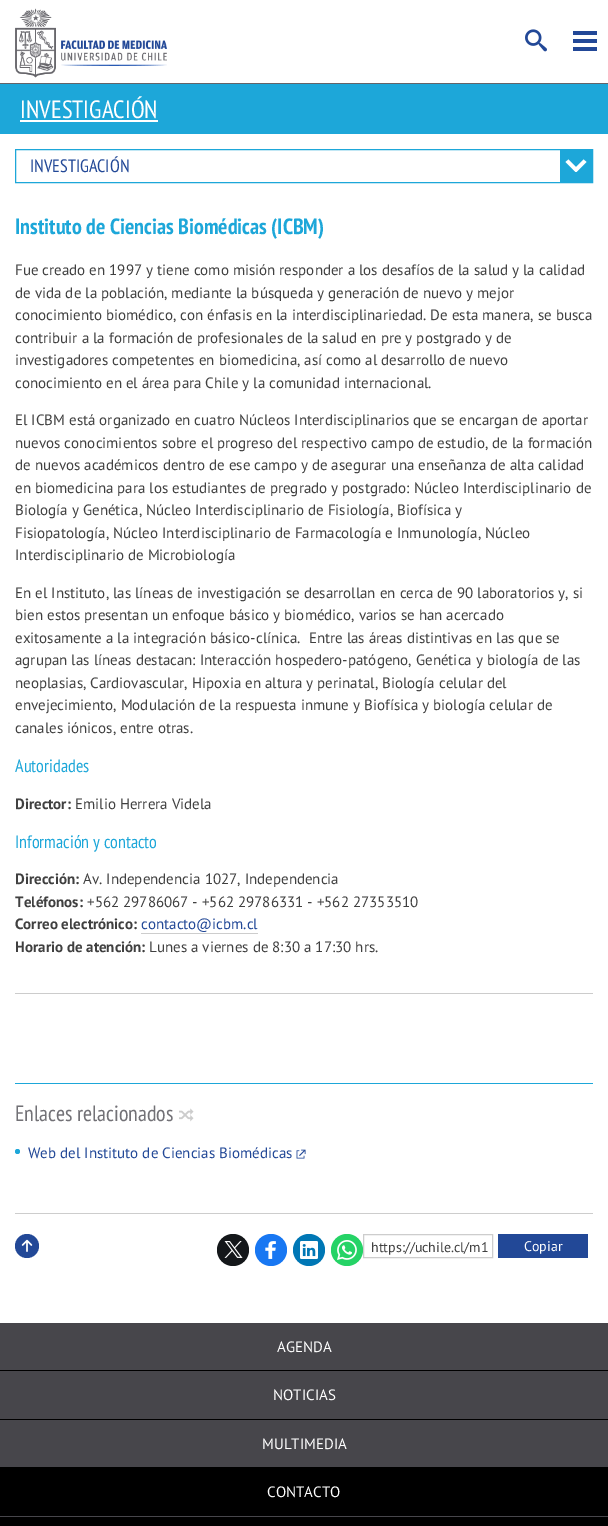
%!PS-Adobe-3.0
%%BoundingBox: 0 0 608 1526
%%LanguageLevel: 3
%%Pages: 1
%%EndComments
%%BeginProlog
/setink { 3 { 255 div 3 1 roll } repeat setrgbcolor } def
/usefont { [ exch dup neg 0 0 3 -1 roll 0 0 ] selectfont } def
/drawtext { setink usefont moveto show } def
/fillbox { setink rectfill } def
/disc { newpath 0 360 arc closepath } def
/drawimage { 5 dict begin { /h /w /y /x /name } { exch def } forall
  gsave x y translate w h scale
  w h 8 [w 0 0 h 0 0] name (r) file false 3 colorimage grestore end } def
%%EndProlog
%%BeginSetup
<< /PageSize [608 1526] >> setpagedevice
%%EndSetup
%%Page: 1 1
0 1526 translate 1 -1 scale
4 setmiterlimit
0 0 608 1526 255 255 255 fillbox
0 83 608 1 100 100 105 fillbox
(assets/img1.rgb) 15 8 152 70 drawimage
(assets/img2.rgb) 525 29 22 23 drawimage
573 31 24 4 34 72 151 fillbox
573 39 24 4 34 72 151 fillbox
573 47 24 4 34 72 151 fillbox
0 84 608 50 29 167 217 fillbox
(INVESTIGACIÓN) 20 118 /PTSansNarrow-Regular 25 255 255 255 drawtext
20 120 138 2 255 255 255 fillbox
29 167 217 setink
15.5 149.5 577 33 rectstroke
(INVESTIGACIÓN) 30 172 /PTSansNarrow-Regular 18 34 72 151 drawtext
560 150 32 32 29 167 217 fillbox
255 255 255 setink
578.5 169.5 moveto 575.5 172 lineto 565.5 162 lineto 568.5 159.5 lineto closepath fill
583.5 159.5 moveto 586.5 162 lineto 576.5 172 lineto 573.5 169.5 lineto closepath fill
(Instituto de Ciencias Biomédicas \(ICBM\)) 15 234 /PTSansNarrow-Bold 22 29 167 217 drawtext
(Fue creado en 1997 y tiene como misión responder a los desafíos de la salud y la calidad) 15 275 /PTSans-Regular 15 64 64 64 drawtext
(de vida de la población, mediante la búsqueda y generación de nuevo y mejor) 15 298 /PTSans-Regular 15 64 64 64 drawtext
(conocimiento biomédico, con énfasis en la interdisciplinariedad. De esta manera, se busca) 15 320 /PTSans-Regular 15 64 64 64 drawtext
(contribuir a la formación de profesionales de la salud en pre y postgrado y de) 15 343 /PTSans-Regular 15 64 64 64 drawtext
(investigadores competentes en biomedicina, así como al desarrollo de nuevo) 15 365 /PTSans-Regular 15 64 64 64 drawtext
(conocimiento en el área para Chile y la comunidad internacional.) 15 388 /PTSans-Regular 15 64 64 64 drawtext
(El ICBM está organizado en cuatro Núcleos Interdisciplinarios que se encargan de aportar) 15 425 /PTSans-Regular 15 64 64 64 drawtext
(nuevos conocimientos sobre el progreso del respectivo campo de estudio, de la formación) 15 448 /PTSans-Regular 15 64 64 64 drawtext
(de nuevos académicos dentro de ese campo y de asegurar una enseñanza de alta calidad) 15 470 /PTSans-Regular 15 64 64 64 drawtext
(en biomedicina para los estudiantes de pregrado y postgrado: Núcleo Interdisciplinario de) 15 493 /PTSans-Regular 15 64 64 64 drawtext
(Biología y Genética, Núcleo Interdisciplinario de Fisiología, Biofísica y) 15 515 /PTSans-Regular 15 64 64 64 drawtext
(Fisiopatología, Núcleo Interdisciplinario de Farmacología e Inmunología, Núcleo) 15 538 /PTSans-Regular 15 64 64 64 drawtext
(Interdisciplinario de Microbiología) 15 560 /PTSans-Regular 15 64 64 64 drawtext
(En el Instituto, las líneas de investigación se desarrollan en cerca de 90 laboratorios y, si) 15 598 /PTSans-Regular 15 64 64 64 drawtext
(bien estos presentan un enfoque básico y biomédico, varios se han acercado) 15 620 /PTSans-Regular 15 64 64 64 drawtext
(exitosamente a la integración básico-clínica.  Entre las áreas distintivas en las que se) 15 643 /PTSans-Regular 15 64 64 64 drawtext
(agrupan las líneas destacan: Interacción hospedero-patógeno, Genética y biología de las) 15 665 /PTSans-Regular 15 64 64 64 drawtext
(neoplasias, Cardiovascular, Hipoxia en altura y perinatal, Biología celular del) 15 688 /PTSans-Regular 15 64 64 64 drawtext
(envejecimiento, Modulación de la respuesta inmune y Biofísica y biología celular de) 15 710 /PTSans-Regular 15 64 64 64 drawtext
(canales iónicos, entre otras.) 15 733 /PTSans-Regular 15 64 64 64 drawtext
(Autoridades) 15 772 /PTSansNarrow-Regular 18 29 167 217 drawtext
(Director:) 15 809 /PTSans-Bold 15 64 64 64 drawtext
(Emilio Herrera Videla) 75 809 /PTSans-Regular 15 64 64 64 drawtext
(Información y contacto) 15 848 /PTSansNarrow-Regular 18 29 167 217 drawtext
(Dirección:) 15 884 /PTSans-Bold 15 64 64 64 drawtext
(Av. Independencia 1027, Independencia) 83 884 /PTSans-Regular 15 64 64 64 drawtext
(Teléfonos:) 15 907 /PTSans-Bold 15 64 64 64 drawtext
(+562 29786067 - +562 29786331 - +562 27353510) 87 907 /PTSans-Regular 15 64 64 64 drawtext
(Correo electrónico:) 15 929 /PTSans-Bold 15 64 64 64 drawtext
(contacto@icbm.cl) 141 929 /PTSans-Regular 15 34 72 151 drawtext
141 933 117 1 205 205 205 fillbox
(Horario de atención:) 15 952 /PTSans-Bold 15 64 64 64 drawtext
(Lunes a viernes de 8:30 a 17:30 hrs.) 149 952 /PTSans-Regular 15 64 64 64 drawtext
15 993 578 1 204 204 204 fillbox
15 1083 578 1 29 167 217 fillbox
(Enlaces relacionados) 15 1121 /PTSansNarrow-Regular 22 114 113 118 drawtext
(assets/img3.rgb) 179 1108 15 14 drawimage
29 167 217 setink
17.5 1151.5 2.5 disc fill
(Web del Instituto de Ciencias Biomédicas) 28 1158 /PTSans-Regular 15 34 72 151 drawtext
(assets/img4.rgb) 296 1149 10 10 drawimage
15 1213 578 1 205 205 205 fillbox
34 72 151 setink
27 1246 12 disc fill
(assets/img5.rgb) 21 1239 12 13 drawimage
20 23 26 setink
233 1250 16 disc fill
(assets/img6.rgb) 224 1241 19 17 drawimage
24 119 242 setink
271 1250 16 disc fill
(assets/img7.rgb) 265 1241 11 18 drawimage
0 119 181 setink
309 1250 16 disc fill
(assets/img8.rgb) 300 1241 18 18 drawimage
37 211 102 setink
347 1250 16 disc fill
(assets/img9.rgb) 337 1240 20 20 drawimage
205 205 205 setink
363.5 1234.5 129 23 rectstroke
(https://uchile.cl/m1) 371 1252 /PTSans-Regular 14 64 64 64 drawtext
498 1234 90 24 34 72 151 fillbox
(Copiar) 524 1251 /PTSans-Regular 14 255 255 255 drawtext
0 1467 608 59 0 0 0 fillbox
0 1323 608 144 71 70 75 fillbox
0 1370 608 1 0 0 0 fillbox
(AGENDA) 277 1352 /PTSans-Regular 15 255 255 255 drawtext
0 1419 608 1 0 0 0 fillbox
(NOTICIAS) 273 1400 /PTSans-Regular 15 255 255 255 drawtext
(MULTIMEDIA) 262 1449 /PTSans-Regular 15 255 255 255 drawtext
0 1516 608 1 71 70 75 fillbox
(CONTACTO) 267 1497 /PTSans-Regular 15 255 255 255 drawtext
showpage
%%EOF
